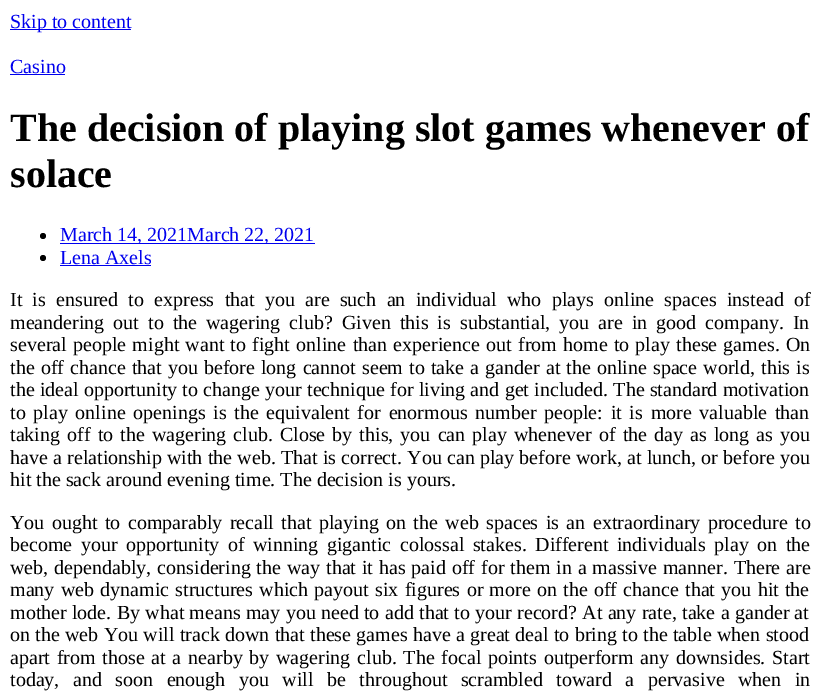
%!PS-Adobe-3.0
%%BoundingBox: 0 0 819 697
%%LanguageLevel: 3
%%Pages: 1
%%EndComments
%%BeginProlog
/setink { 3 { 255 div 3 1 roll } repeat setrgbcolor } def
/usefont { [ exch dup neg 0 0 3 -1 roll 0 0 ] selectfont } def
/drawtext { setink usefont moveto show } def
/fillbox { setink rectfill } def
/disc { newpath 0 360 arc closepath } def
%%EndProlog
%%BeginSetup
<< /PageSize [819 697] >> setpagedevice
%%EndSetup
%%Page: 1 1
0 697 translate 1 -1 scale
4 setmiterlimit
0 0 819 697 255 255 255 fillbox
10 29 121 1 0 0 238 fillbox
(Skip to content) 10 28 /LiberationSerif-Regular 20 0 0 238 drawtext
(Casino) 10 73 /LiberationSerif-Regular 20 0 0 238 drawtext
10 74 55 1 0 0 238 fillbox
(The decision of playing slot games whenever of) 10 141 /LiberationSerif-Bold 40 0 0 0 drawtext
(solace) 10 187 /LiberationSerif-Bold 40 0 0 0 drawtext
43 236 3 disc fill
60 243 255 1 0 0 238 fillbox
(March 14, 2021March 22, 2021) 60 241 /LiberationSerif-Regular 20 0 0 238 drawtext
0 0 0 setink
43 258 3 disc fill
(Lena Axels) 60 264 /LiberationSerif-Regular 20 0 0 238 drawtext
60 265 91 1 0 0 238 fillbox
0 0 0 setink
10 306 moveto 5.25 0 32 (It is ensured to express that you are such an individual who plays online spaces instead of) widthshow
10 329 moveto 4 0 32 (meandering out to the wagering club? Given this is substantial, you are in good company. In) widthshow
10 351 moveto 1.25 0 32 (several people might want to fight online than experience out from home to play these games. On) widthshow
10 374 moveto 1.1 0 32 (the off chance that you before long cannot seem to take a gander at the online space world, this is) widthshow
10 396 moveto 0.25 0 32 (the ideal opportunity to change your technique for living and get included. The standard motivation) widthshow
10 419 moveto 2.75 0 32 (to play online openings is the equivalent for enormous number people: it is more valuable than) widthshow
10 441 moveto 2.1 0 32 (taking off to the wagering club. Close by this, you can play whenever of the day as long as you) widthshow
10 464 moveto 0.25 0 32 (have a relationship with the web. That is correct. You can play before work, at lunch, or before you) widthshow
(hit the sack around evening time. The decision is yours.) 10 486 /LiberationSerif-Regular 20 0 0 0 drawtext
10 529 moveto 2.4 0 32 (You ought to comparably recall that playing on the web spaces is an extraordinary procedure to) widthshow
10 551 moveto 3.5 0 32 (become your opportunity of winning gigantic colossal stakes. Different individuals play on the) widthshow
10 574 moveto 0.9 0 32 (web, dependably, considering the way that it has paid off for them in a massive manner. There are) widthshow
10 596 moveto 1.25 0 32 (many web dynamic structures which payout six figures or more on the off chance that you hit the) widthshow
10 619 moveto 0.3 0 32 (mother lode. By what means may you need to add that to your record? At any rate, take a gander at) widthshow
10 641 moveto 0.3 0 32 (on the web You will track down that these games have a great deal to bring to the table when stood) widthshow
10 664 moveto 1.75 0 32 (apart from those at a nearby by wagering club. The focal points outperform any downsides. Start) widthshow
10 686 moveto 8.5 0 32 (today, and soon enough you will be throughout scrambled toward a pervasive when in) widthshow
showpage
%%EOF
